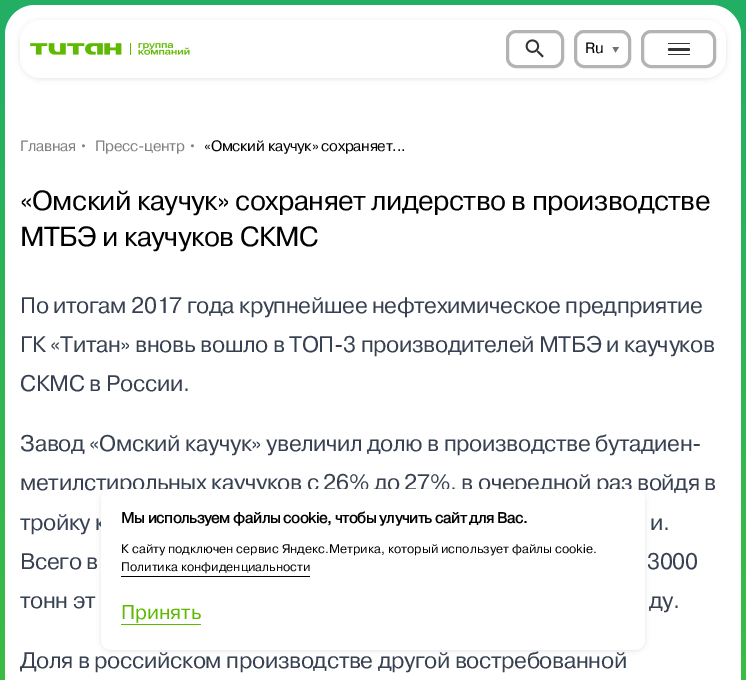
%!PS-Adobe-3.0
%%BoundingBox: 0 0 746 680
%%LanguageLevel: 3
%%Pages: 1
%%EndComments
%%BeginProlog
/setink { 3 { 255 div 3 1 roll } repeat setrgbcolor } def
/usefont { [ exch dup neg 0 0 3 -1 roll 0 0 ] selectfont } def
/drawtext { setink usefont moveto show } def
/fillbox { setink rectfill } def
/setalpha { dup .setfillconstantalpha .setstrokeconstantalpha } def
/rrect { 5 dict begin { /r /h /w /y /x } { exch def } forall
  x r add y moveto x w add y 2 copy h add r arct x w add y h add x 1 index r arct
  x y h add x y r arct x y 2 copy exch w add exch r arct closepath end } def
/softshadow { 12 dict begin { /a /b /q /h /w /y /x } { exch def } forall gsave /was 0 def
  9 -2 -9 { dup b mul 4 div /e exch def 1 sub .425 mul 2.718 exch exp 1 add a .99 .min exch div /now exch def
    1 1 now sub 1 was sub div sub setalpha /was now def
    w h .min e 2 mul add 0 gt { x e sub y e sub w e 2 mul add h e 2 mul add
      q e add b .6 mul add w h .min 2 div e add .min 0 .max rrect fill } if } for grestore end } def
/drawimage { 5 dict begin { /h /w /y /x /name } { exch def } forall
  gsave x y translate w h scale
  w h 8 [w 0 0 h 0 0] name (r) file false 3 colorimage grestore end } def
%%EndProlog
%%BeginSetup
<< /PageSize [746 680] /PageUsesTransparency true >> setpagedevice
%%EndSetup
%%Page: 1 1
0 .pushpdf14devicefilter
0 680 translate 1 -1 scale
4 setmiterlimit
0 0 746 680 255 255 255 fillbox
gsave 0 0 moveto 746 0 lineto 746 680 lineto 0 680 lineto closepath clip newpath
<< /ShadingType 2 /ColorSpace /DeviceRGB /Coords [373 0 373 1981] /Extend [true true] /Function << /FunctionType 2 /Domain [0 1] /C0 [0.133 0.686 0.396] /C1 [0.431 0.827 0.024] /N 1 >> >> shfill grestore
5 5 736 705 30 rrect fill
0 0 0 setink
20 21 706 58 20 2.5 0.1 softshadow
255 255 255 setink
20 20 706 58 20 rrect fill
(assets/img1.rgb) 30 43 160 12 drawimage
179 179 179 setink
3 setlinewidth
507.5 31.5 55 35 8.5 rrect stroke
(assets/img2.rgb) 525 39 19 19 drawimage
575.5 31.5 54 35 8.5 rrect stroke
/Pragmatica-Regular 15 usefont
0 0 0 setink
585 53 moveto -0.3 0 (Ru) ashow
113 113 113 setink
615.5 52.5 moveto 619 47 lineto 612.5 47 lineto closepath fill
179 179 179 setink
642.5 31.5 72 35 8.5 rrect stroke
51 51 51 setink
668 43 22 1 0.5 rrect fill
668 48 22 3 1.5 rrect fill
668 54 22 1 0.5 rrect fill
128 128 128 setink
20 151 moveto -0.3 0 (Главная •) ashow
95 151 moveto -0.3 0 (Пресс-центр •) ashow
0 0 0 setink
204 151 moveto -0.3 0 («Омский каучук» cохраняет...) ashow
/Pragmatica-Regular 27.5 usefont
20 210 moveto -0.55 0 («Омский каучук» cохраняет лидерство в производстве) ashow
20 246 moveto -0.55 0 (МТБЭ и каучуков СКМС) ashow
/Pragmatica-Regular 22.5 usefont
55 65 81 setink
20 313 moveto -0.4 0 (По итогам 2017 года крупнейшее нефтехимическое предприятие) ashow
20 352 moveto -0.4 0 (ГК «Титан» вновь вошло в ТОП-3 производителей МТБЭ и каучуков) ashow
20 391 moveto -0.4 0 (СКМС в России.) ashow
20 451 moveto -0.4 0 (Завод «Омский каучук» увеличил долю в производстве бутадиен-) ashow
20 490 moveto -0.4 0 (метилстирольных каучуков с 26% до 27%, в очередной раз войдя в) ashow
20 530 moveto -0.4 0 (тройку к) ashow
650 530 moveto -0.4 0 (и.) ashow
20 569 moveto -0.4 0 (Всего в) ashow
647 569 moveto -0.4 0 (3000) ashow
20 608 moveto -0.4 0 (тонн эт) ashow
649 608 moveto -0.4 0 (ду.) ashow
20 668 moveto -0.4 0 (Доля в российском производстве другой востребованной) ashow
0 0 0 setink
101 490 544 161 10 2.5 0.1 softshadow
255 255 255 setink
101 489 544 161 10 rrect fill
/Pragmatica-Bold 15 usefont
0 0 0 setink
121 523 moveto -0.3 0 (Мы используем файлы cookie, чтобы улучить сайт для Вас.) ashow
(К сайту подключен сервис Яндекс.Метрика, который использует файлы cookie.) 121 553 /Pragmatica-Regular 12.5 0 0 0 drawtext
(Политика конфиденциальности) 121 571 /Pragmatica-Regular 12.5 0 0 0 drawtext
121 576 189 1 0 0 0 fillbox
(Принять) 121 619 /Pragmatica-Regular 20 95 185 0 drawtext
121 624 80 1 95 185 0 fillbox
.poppdf14devicefilter showpage
%%EOF
